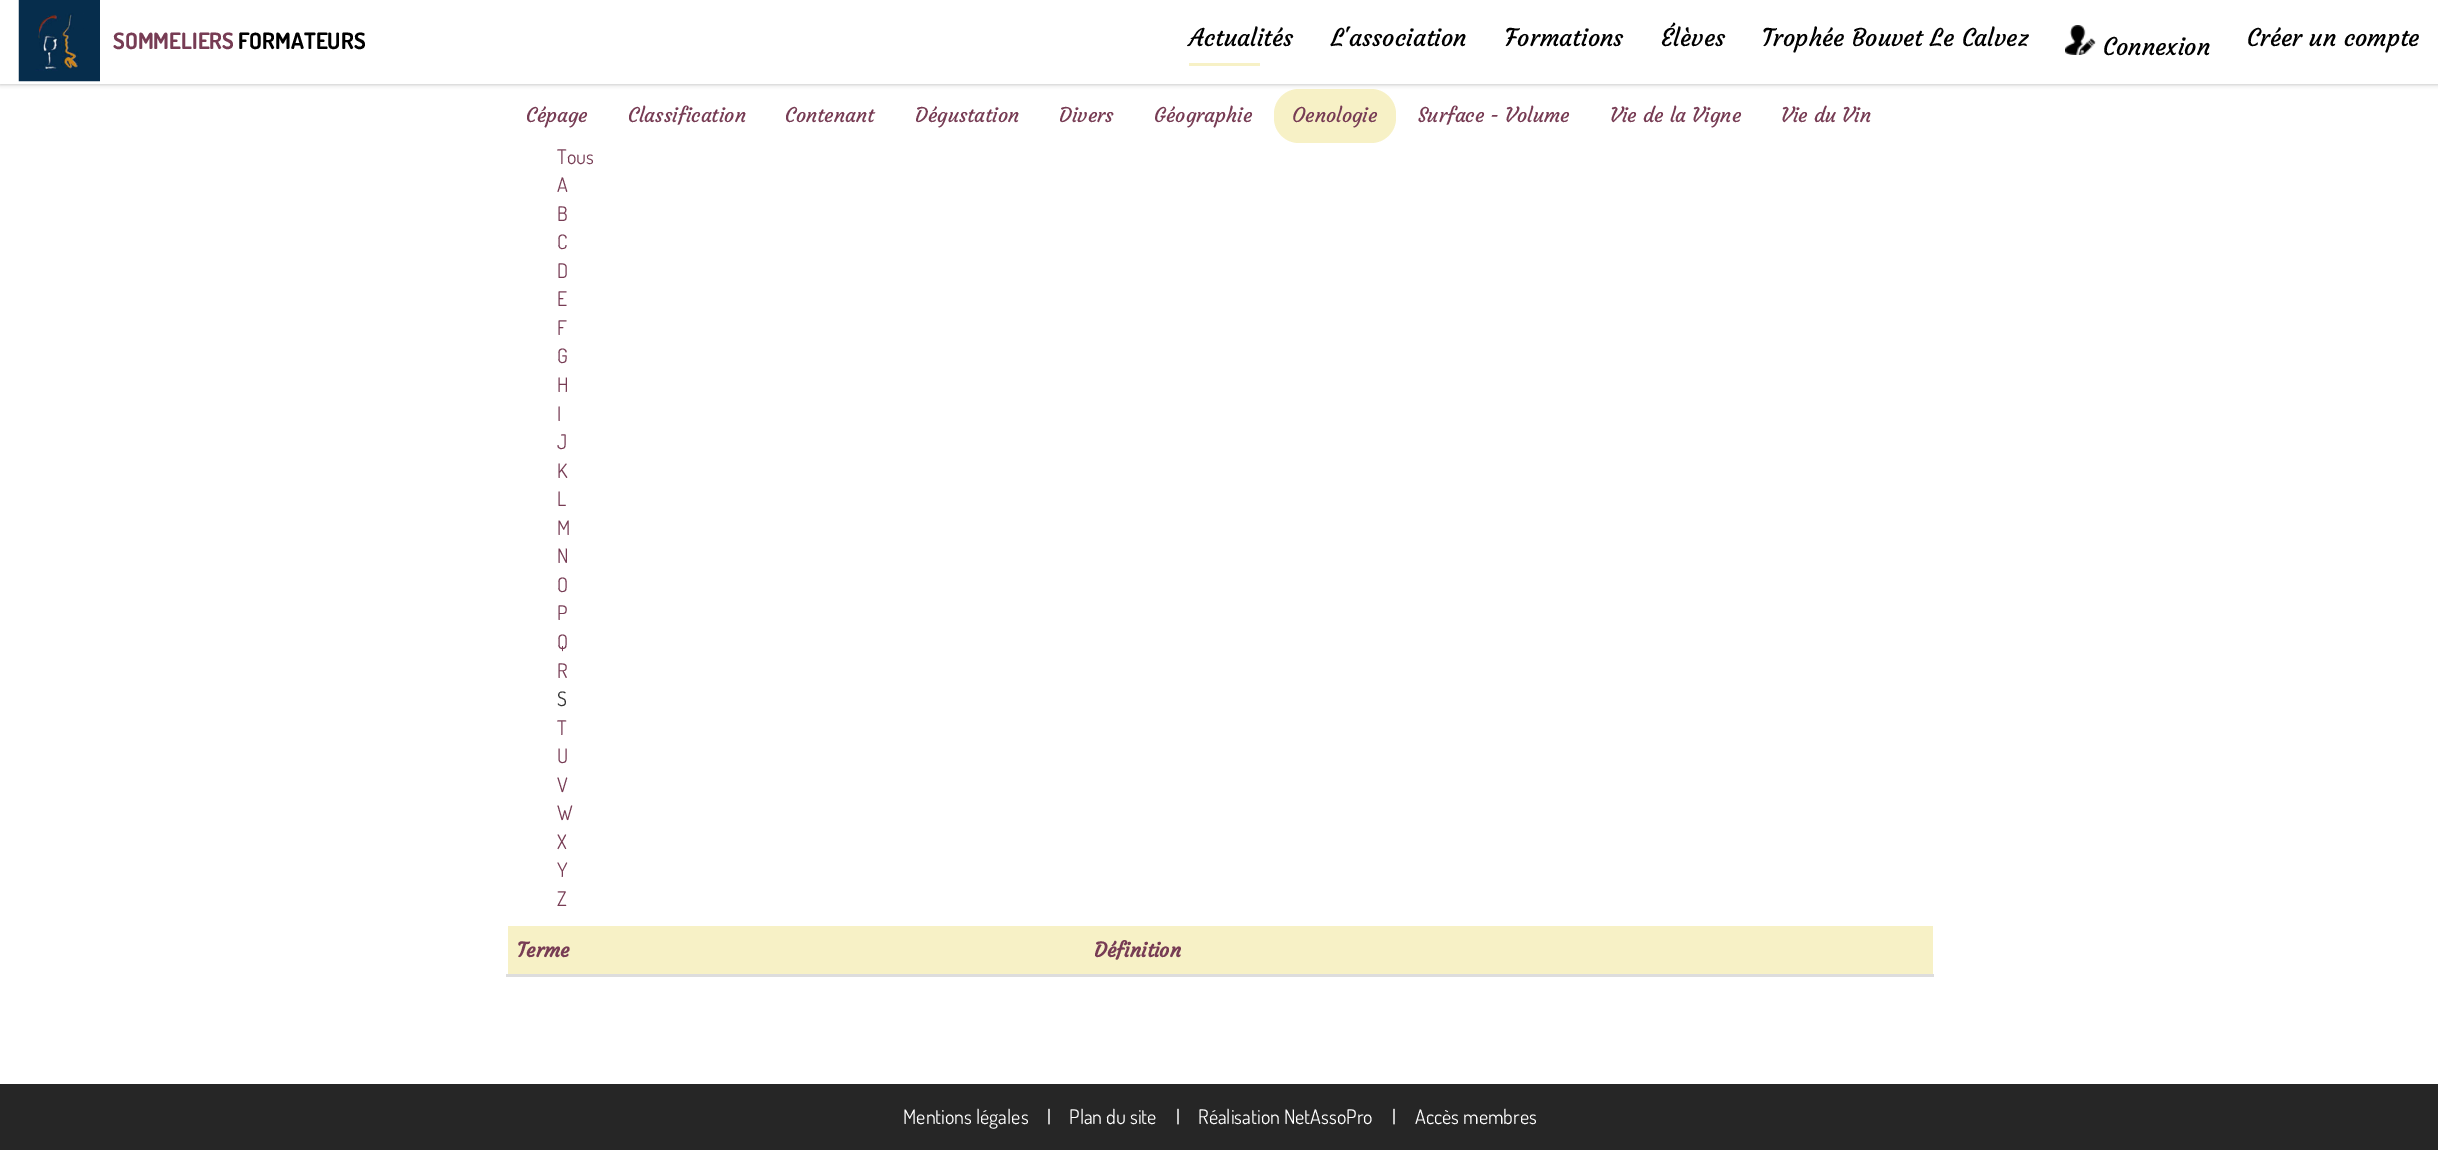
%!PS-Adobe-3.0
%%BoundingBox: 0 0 2438 1150
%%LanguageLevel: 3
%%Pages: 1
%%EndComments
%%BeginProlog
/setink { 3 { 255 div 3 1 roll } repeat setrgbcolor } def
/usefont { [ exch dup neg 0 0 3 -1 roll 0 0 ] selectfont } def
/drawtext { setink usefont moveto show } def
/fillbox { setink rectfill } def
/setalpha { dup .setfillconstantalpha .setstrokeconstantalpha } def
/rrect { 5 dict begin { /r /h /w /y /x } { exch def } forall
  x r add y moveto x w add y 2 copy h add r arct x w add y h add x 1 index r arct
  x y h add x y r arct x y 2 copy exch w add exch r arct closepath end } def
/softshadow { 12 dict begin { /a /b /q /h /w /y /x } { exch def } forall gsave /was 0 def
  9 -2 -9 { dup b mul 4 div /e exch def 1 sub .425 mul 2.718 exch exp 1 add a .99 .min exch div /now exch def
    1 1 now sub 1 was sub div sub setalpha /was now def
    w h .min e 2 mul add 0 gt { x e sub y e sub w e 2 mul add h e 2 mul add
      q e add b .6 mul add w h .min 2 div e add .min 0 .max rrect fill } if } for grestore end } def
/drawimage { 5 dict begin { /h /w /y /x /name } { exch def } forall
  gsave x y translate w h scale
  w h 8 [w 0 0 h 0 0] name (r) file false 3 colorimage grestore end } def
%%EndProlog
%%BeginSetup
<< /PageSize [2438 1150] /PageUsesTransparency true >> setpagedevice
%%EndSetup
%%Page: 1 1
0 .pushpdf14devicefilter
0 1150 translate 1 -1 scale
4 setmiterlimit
0 0 2438 1150 255 255 255 fillbox
247 241 198 setink
1274 89 122 54 25 rrect fill
0 0 0 setink
0 0 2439 84 0 2.5 0.3 softshadow
0 0 2438 84 255 255 255 fillbox
(assets/img1.rgb) 18 0 82 82 drawimage
(SOMMELIERS) 113 49 /Dosis-Bold 22.5 119 60 84 drawtext
(FORMATEURS) 238 49 /Dosis-Bold 22.5 0 0 0 drawtext
(Actualités) 1189 46 /Courgette-Regular 24 0 0 0 drawtext
1189 63 71 3 247 241 198 fillbox
(L'association) 1331 46 /Courgette-Regular 24 0 0 0 drawtext
(Formations) 1505 46 /Courgette-Regular 24 0 0 0 drawtext
(Élèves) 1661 46 /Courgette-Regular 24 0 0 0 drawtext
(Trophée Bouvet Le Calvez) 1762 46 /Courgette-Regular 24 0 0 0 drawtext
(assets/img2.rgb) 2065 25 31 30 drawimage
(Connexion) 2103 55 /Courgette-Regular 24 0 0 0 drawtext
(Créer un compte) 2247 46 /Courgette-Regular 24 0 0 0 drawtext
(Cépage) 526 122 /Courgette-Regular 20 119 60 84 drawtext
(Classification) 628 122 /Courgette-Regular 20 119 60 84 drawtext
(Contenant) 785 122 /Courgette-Regular 20 119 60 84 drawtext
(Dégustation) 915 122 /Courgette-Regular 20 119 60 84 drawtext
(Divers) 1059 122 /Courgette-Regular 20 119 60 84 drawtext
(Géographie) 1154 122 /Courgette-Regular 20 119 60 84 drawtext
(Oenologie) 1292 122 /Courgette-Regular 20 119 60 84 drawtext
(Surface - Volume) 1418 122 /Courgette-Regular 20 119 60 84 drawtext
(Vie de la Vigne) 1610 122 /Courgette-Regular 20 119 60 84 drawtext
(Vie du Vin) 1781 122 /Courgette-Regular 20 119 60 84 drawtext
(Tous) 557 164 /Dosis-Regular 20 119 60 84 drawtext
(A) 557 192 /Dosis-Regular 20 119 60 84 drawtext
(B) 557 221 /Dosis-Regular 20 119 60 84 drawtext
(C) 557 249 /Dosis-Regular 20 119 60 84 drawtext
(D) 557 278 /Dosis-Regular 20 119 60 84 drawtext
(E) 557 306 /Dosis-Regular 20 119 60 84 drawtext
(F) 557 335 /Dosis-Regular 20 119 60 84 drawtext
(G) 557 363 /Dosis-Regular 20 119 60 84 drawtext
(H) 557 392 /Dosis-Regular 20 119 60 84 drawtext
(I) 557 421 /Dosis-Regular 20 119 60 84 drawtext
(J) 557 449 /Dosis-Regular 20 119 60 84 drawtext
(K) 557 478 /Dosis-Regular 20 119 60 84 drawtext
(L) 557 506 /Dosis-Regular 20 119 60 84 drawtext
(M) 557 535 /Dosis-Regular 20 119 60 84 drawtext
(N) 557 563 /Dosis-Regular 20 119 60 84 drawtext
(O) 557 592 /Dosis-Regular 20 119 60 84 drawtext
(P) 557 620 /Dosis-Regular 20 119 60 84 drawtext
(Q) 557 649 /Dosis-Regular 20 119 60 84 drawtext
(R) 557 678 /Dosis-Regular 20 119 60 84 drawtext
(S) 557 706 /Dosis-Regular 20 51 51 51 drawtext
(T) 557 735 /Dosis-Regular 20 119 60 84 drawtext
(U) 557 763 /Dosis-Regular 20 119 60 84 drawtext
(V) 557 792 /Dosis-Regular 20 119 60 84 drawtext
(W) 557 820 /Dosis-Regular 20 119 60 84 drawtext
(X) 557 849 /Dosis-Regular 20 119 60 84 drawtext
(Y) 557 877 /Dosis-Regular 20 119 60 84 drawtext
(Z) 557 906 /Dosis-Regular 20 119 60 84 drawtext
508 926 1425 48 247 241 198 fillbox
(Terme) 517 957 /Courgette-Bold 20 119 60 84 drawtext
506 974 1428 3 221 221 221 fillbox
(Définition) 1094 957 /Courgette-Bold 20 119 60 84 drawtext
0 1084 2438 66 38 38 38 fillbox
(Mentions légales) 903 1124 /Dosis-Regular 20 255 255 255 drawtext
(|) 1047 1124 /Dosis-Regular 20 255 255 255 drawtext
(Plan du site) 1069 1124 /Dosis-Regular 20 255 255 255 drawtext
(|) 1176 1124 /Dosis-Regular 20 255 255 255 drawtext
(Réalisation NetAssoPro) 1198 1124 /Dosis-Regular 20 255 255 255 drawtext
(|) 1392 1124 /Dosis-Regular 20 255 255 255 drawtext
(Accès membres) 1415 1124 /Dosis-Regular 20 255 255 255 drawtext
.poppdf14devicefilter showpage
%%EOF
